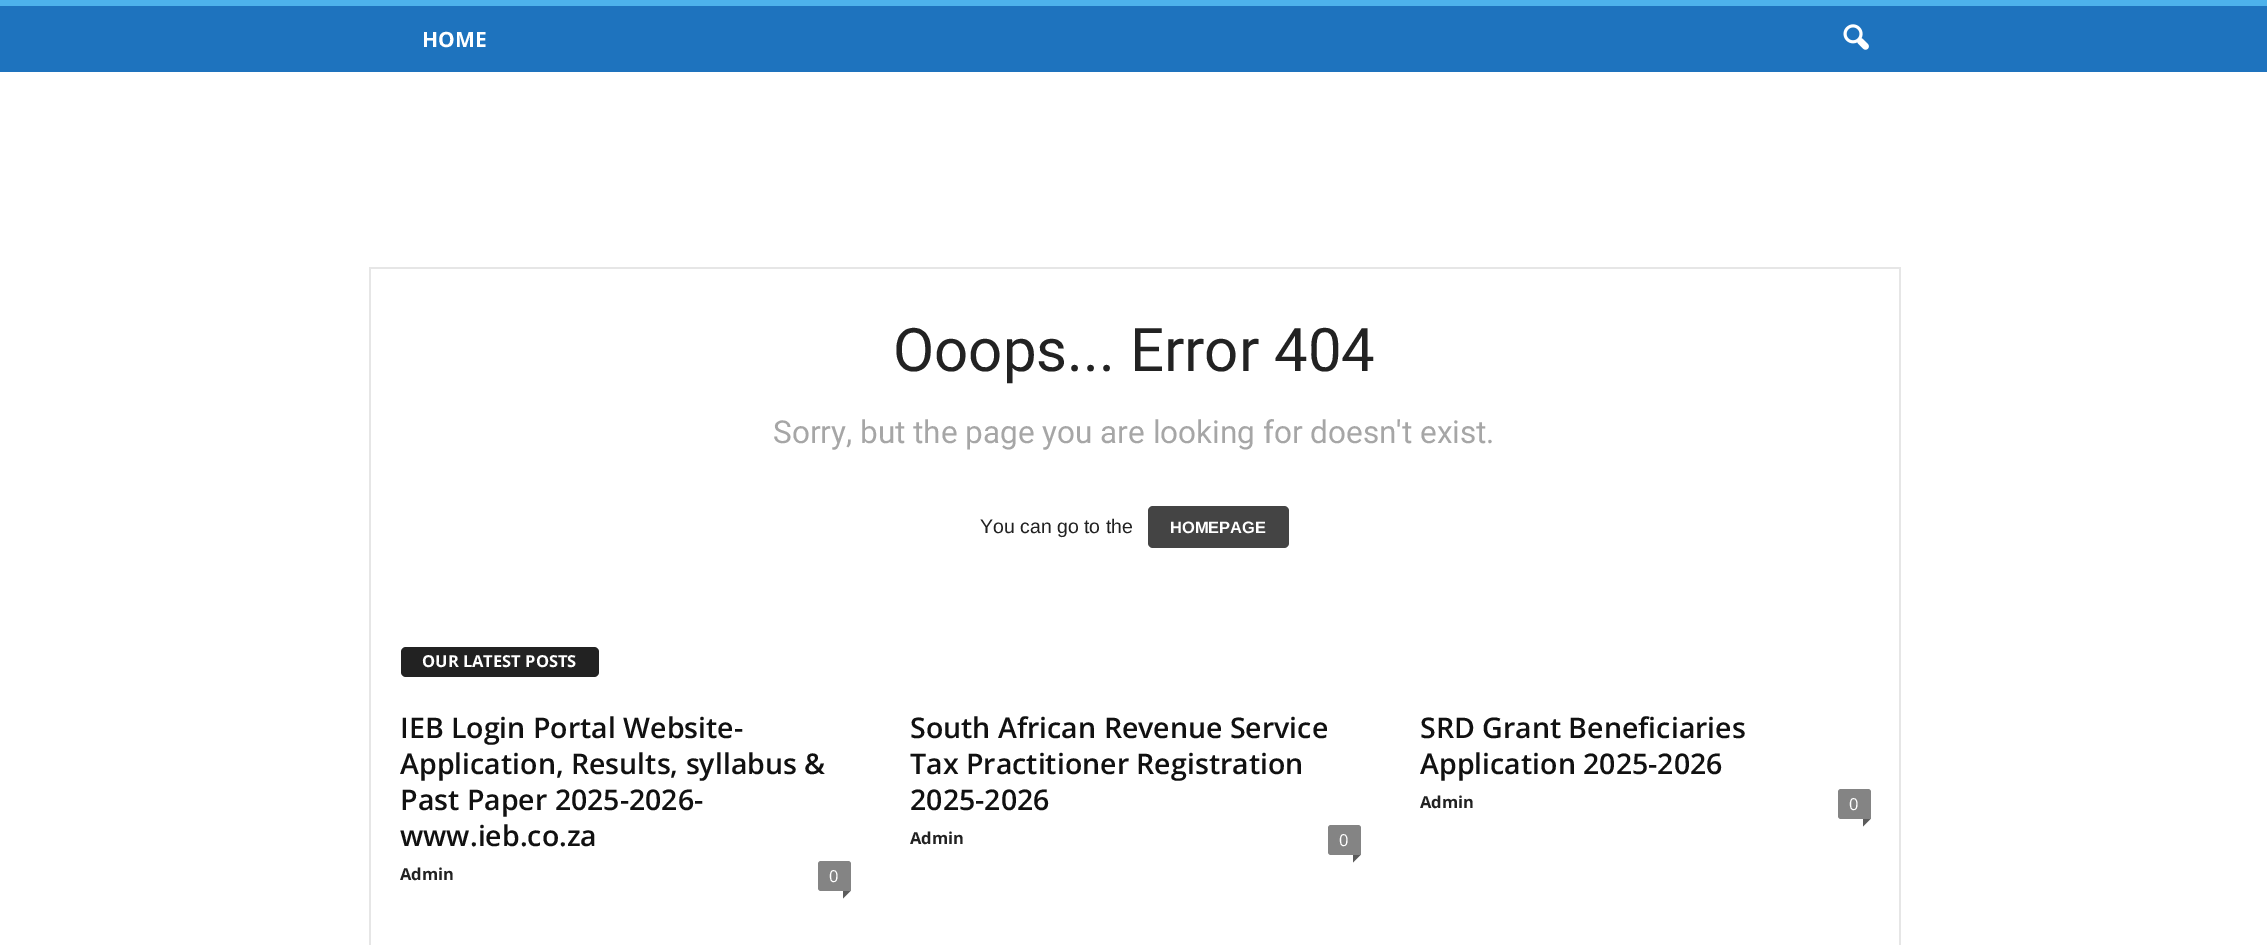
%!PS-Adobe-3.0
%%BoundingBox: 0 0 2267 945
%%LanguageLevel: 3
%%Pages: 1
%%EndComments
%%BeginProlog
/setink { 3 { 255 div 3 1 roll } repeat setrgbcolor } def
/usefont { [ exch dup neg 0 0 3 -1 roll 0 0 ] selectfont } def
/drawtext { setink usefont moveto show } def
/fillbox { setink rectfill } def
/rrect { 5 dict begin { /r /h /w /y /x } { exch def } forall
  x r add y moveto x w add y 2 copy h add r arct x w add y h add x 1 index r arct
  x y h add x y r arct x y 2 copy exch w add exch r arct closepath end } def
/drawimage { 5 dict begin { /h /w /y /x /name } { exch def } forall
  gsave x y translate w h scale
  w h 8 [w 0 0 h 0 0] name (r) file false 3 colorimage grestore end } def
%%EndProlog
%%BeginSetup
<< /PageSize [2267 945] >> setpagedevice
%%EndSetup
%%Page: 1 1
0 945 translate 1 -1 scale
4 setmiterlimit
0 0 2267 945 255 255 255 fillbox
0 6 2267 66 30 115 190 fillbox
0 0 2267 6 77 178 236 fillbox
(HOME) 422 47 /OpenSans-Bold 21 255 255 255 drawtext
(assets/img1.rgb) 1843 24 26 26 drawimage
369 267 1532 2 230 230 230 fillbox
369 269 2 676 230 230 230 fillbox
(Ooops... Error 404) 893 371 /Roboto-Regular 60 34 34 34 drawtext
(Sorry, but the page you are looking for doesn't exist.) 773 443 /Roboto-Regular 31.5 166 166 166 drawtext
(You can go to the) 980 533 /LiberationSans-Regular 19.5 34 34 34 drawtext
68 68 68 setink
1148 506 141 42 5 rrect fill
(HOMEPAGE) 1170 533 /LiberationSans-Bold 16.5 255 255 255 drawtext
34 34 34 setink
401 647 198 30 5 rrect fill
(OUR LATEST POSTS) 422 667 /OpenSans-Bold 16.5 255 255 255 drawtext
(IEB Login Portal Website-) 400 738 /OpenSans-SemiBold 28.5 17 17 17 drawtext
(Application, Results, syllabus &) 400 774 /OpenSans-SemiBold 28.5 17 17 17 drawtext
(Past Paper 2025-2026-) 400 810 /OpenSans-SemiBold 28.5 17 17 17 drawtext
(www.ieb.co.za) 400 846 /OpenSans-SemiBold 28.5 17 17 17 drawtext
(Admin) 400 880 /OpenSans-Bold 16.5 34 34 34 drawtext
132 132 132 setink
821 861 moveto 848 861 lineto 849.5 861 851 862.5 851 864 curveto 851 891 lineto 821 891 lineto 819.5 891 818 889.5 818 888 curveto 818 864 lineto 818 862.5 819.5 861 821 861 curveto closepath fill
(0) 829 882 /OpenSans-Regular 16.5 255 255 255 drawtext
91 91 91 setink
843 891 moveto 850.5 891 lineto 843 898.5 lineto closepath fill
(South African Revenue Service) 910 738 /OpenSans-SemiBold 28.5 17 17 17 drawtext
(Tax Practitioner Registration) 910 774 /OpenSans-SemiBold 28.5 17 17 17 drawtext
(2025-2026) 910 810 /OpenSans-SemiBold 28.5 17 17 17 drawtext
(Admin) 910 844 /OpenSans-Bold 16.5 34 34 34 drawtext
132 132 132 setink
1331 825 moveto 1358 825 lineto 1359.5 825 1361 826.5 1361 828 curveto 1361 855 lineto 1331 855 lineto 1329.5 855 1328 853.5 1328 852 curveto 1328 828 lineto 1328 826.5 1329.5 825 1331 825 curveto closepath fill
(0) 1339 846 /OpenSans-Regular 16.5 255 255 255 drawtext
91 91 91 setink
1353 855 moveto 1360.5 855 lineto 1353 862.5 lineto closepath fill
(SRD Grant Beneficiaries) 1420 738 /OpenSans-SemiBold 28.5 17 17 17 drawtext
(Application 2025-2026) 1420 774 /OpenSans-SemiBold 28.5 17 17 17 drawtext
(Admin) 1420 808 /OpenSans-Bold 16.5 34 34 34 drawtext
132 132 132 setink
1841 789 moveto 1868 789 lineto 1869.5 789 1871 790.5 1871 792 curveto 1871 819 lineto 1841 819 lineto 1839.5 819 1838 817.5 1838 816 curveto 1838 792 lineto 1838 790.5 1839.5 789 1841 789 curveto closepath fill
(0) 1849 810 /OpenSans-Regular 16.5 255 255 255 drawtext
91 91 91 setink
1863 819 moveto 1870.5 819 lineto 1863 826.5 lineto closepath fill
1899 269 2 676 230 230 230 fillbox
showpage
%%EOF
